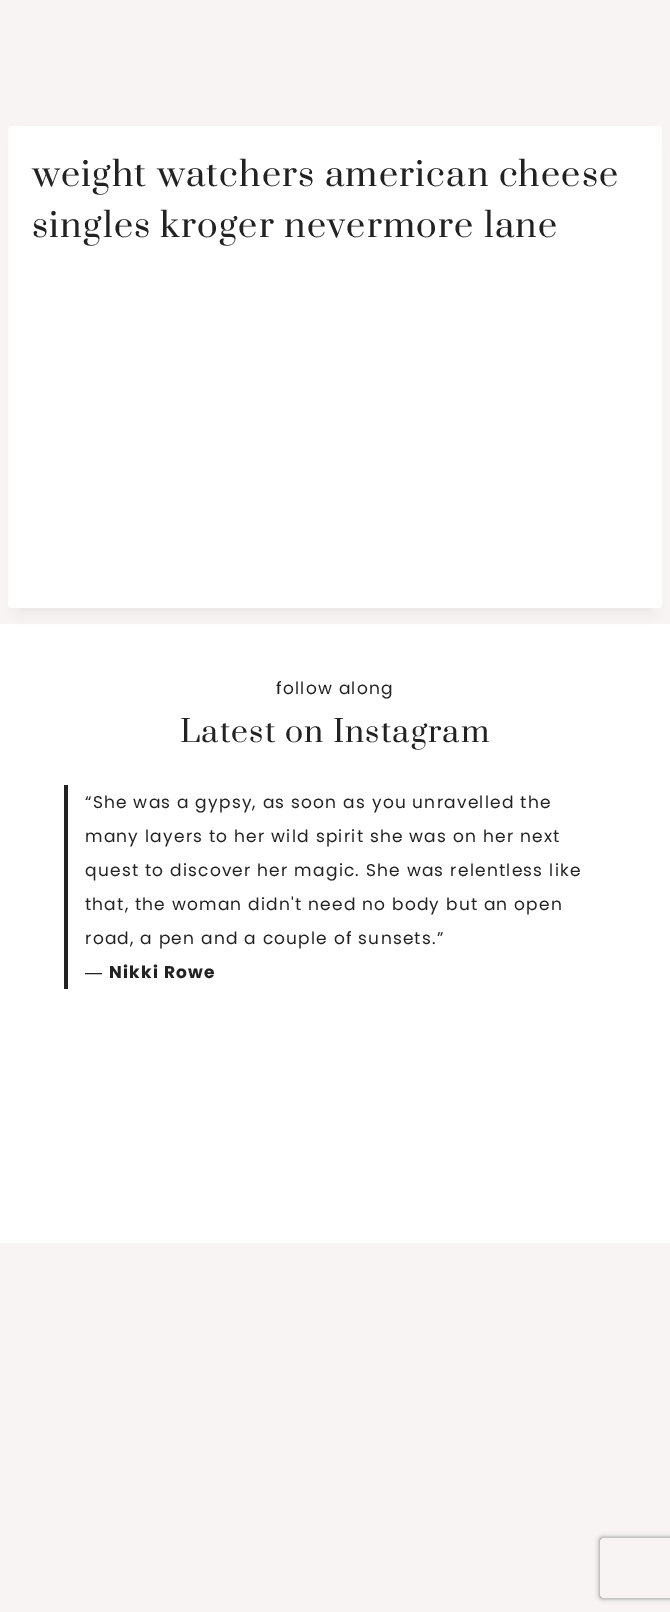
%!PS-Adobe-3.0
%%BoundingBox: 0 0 670 1612
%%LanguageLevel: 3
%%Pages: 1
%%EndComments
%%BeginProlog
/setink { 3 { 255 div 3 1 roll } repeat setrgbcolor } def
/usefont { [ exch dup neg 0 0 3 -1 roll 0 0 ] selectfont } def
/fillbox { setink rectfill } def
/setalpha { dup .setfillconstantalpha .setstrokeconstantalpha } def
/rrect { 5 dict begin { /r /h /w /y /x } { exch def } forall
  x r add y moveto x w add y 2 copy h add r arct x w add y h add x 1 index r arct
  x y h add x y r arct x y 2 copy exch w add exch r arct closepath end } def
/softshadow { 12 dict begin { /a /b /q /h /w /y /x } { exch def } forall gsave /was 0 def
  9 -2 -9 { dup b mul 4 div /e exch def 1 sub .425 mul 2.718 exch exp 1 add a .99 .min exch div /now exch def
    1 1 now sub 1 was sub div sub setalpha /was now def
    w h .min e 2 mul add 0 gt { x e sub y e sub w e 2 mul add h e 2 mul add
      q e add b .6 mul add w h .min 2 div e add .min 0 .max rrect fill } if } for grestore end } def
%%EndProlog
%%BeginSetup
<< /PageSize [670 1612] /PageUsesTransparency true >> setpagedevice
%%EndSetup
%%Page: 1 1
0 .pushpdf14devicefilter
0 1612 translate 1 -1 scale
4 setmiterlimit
0 0 670 1612 247 244 243 fillbox
0 624 670 619 255 255 255 fillbox
0 0 0 setink
18 151 634 462 0 7.5 0.05 softshadow
255 255 255 setink
8 126 654 482 4 rrect fill
/Prata-Regular 34 usefont
34 34 34 setink
32 186 moveto 1.2 0 (weight watchers american cheese) ashow
32 237 moveto 1.2 0 (singles kroger nevermore lane) ashow
/Poppins-Regular 17 usefont
276 694 moveto 1.2 0 (follow along) ashow
/Prata-Regular 30 usefont
180 742 moveto 1.2 0 (Latest on Instagram) ashow
64 785 4 204 34 34 34 fillbox
/Poppins-Regular 17 usefont
85 808 moveto 1.2 0 (“She was a gypsy, as soon as you unravelled the) ashow
85 842 moveto 1.2 0 (many layers to her wild spirit she was on her next) ashow
85 876 moveto 1.2 0 (quest to discover her magic. She was relentless like) ashow
85 910 moveto 1.2 0 (that, the woman didn't need no body but an open) ashow
85 944 moveto 1.2 0 (road, a pen and a couple of sunsets.”) ashow
/LiberationSans-Regular 17 usefont
85 978 moveto 1.2 0 (―) ashow
/Poppins-Bold 17 usefont
109 978 moveto 1.2 0 (Nikki Rowe) ashow
gsave
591 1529 moveto 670 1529 lineto 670 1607 lineto 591 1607 lineto closepath 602 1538 moveto 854 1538 lineto 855 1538 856 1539 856 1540 curveto 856 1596 lineto 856 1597 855 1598 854 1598 curveto 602 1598 lineto 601 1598 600 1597 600 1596 curveto 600 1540 lineto 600 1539 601 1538 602 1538 curveto closepath eoclip newpath
128 128 128 setink
600 1538 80 60 2 2.5 1 softshadow
grestore
.poppdf14devicefilter showpage
%%EOF
